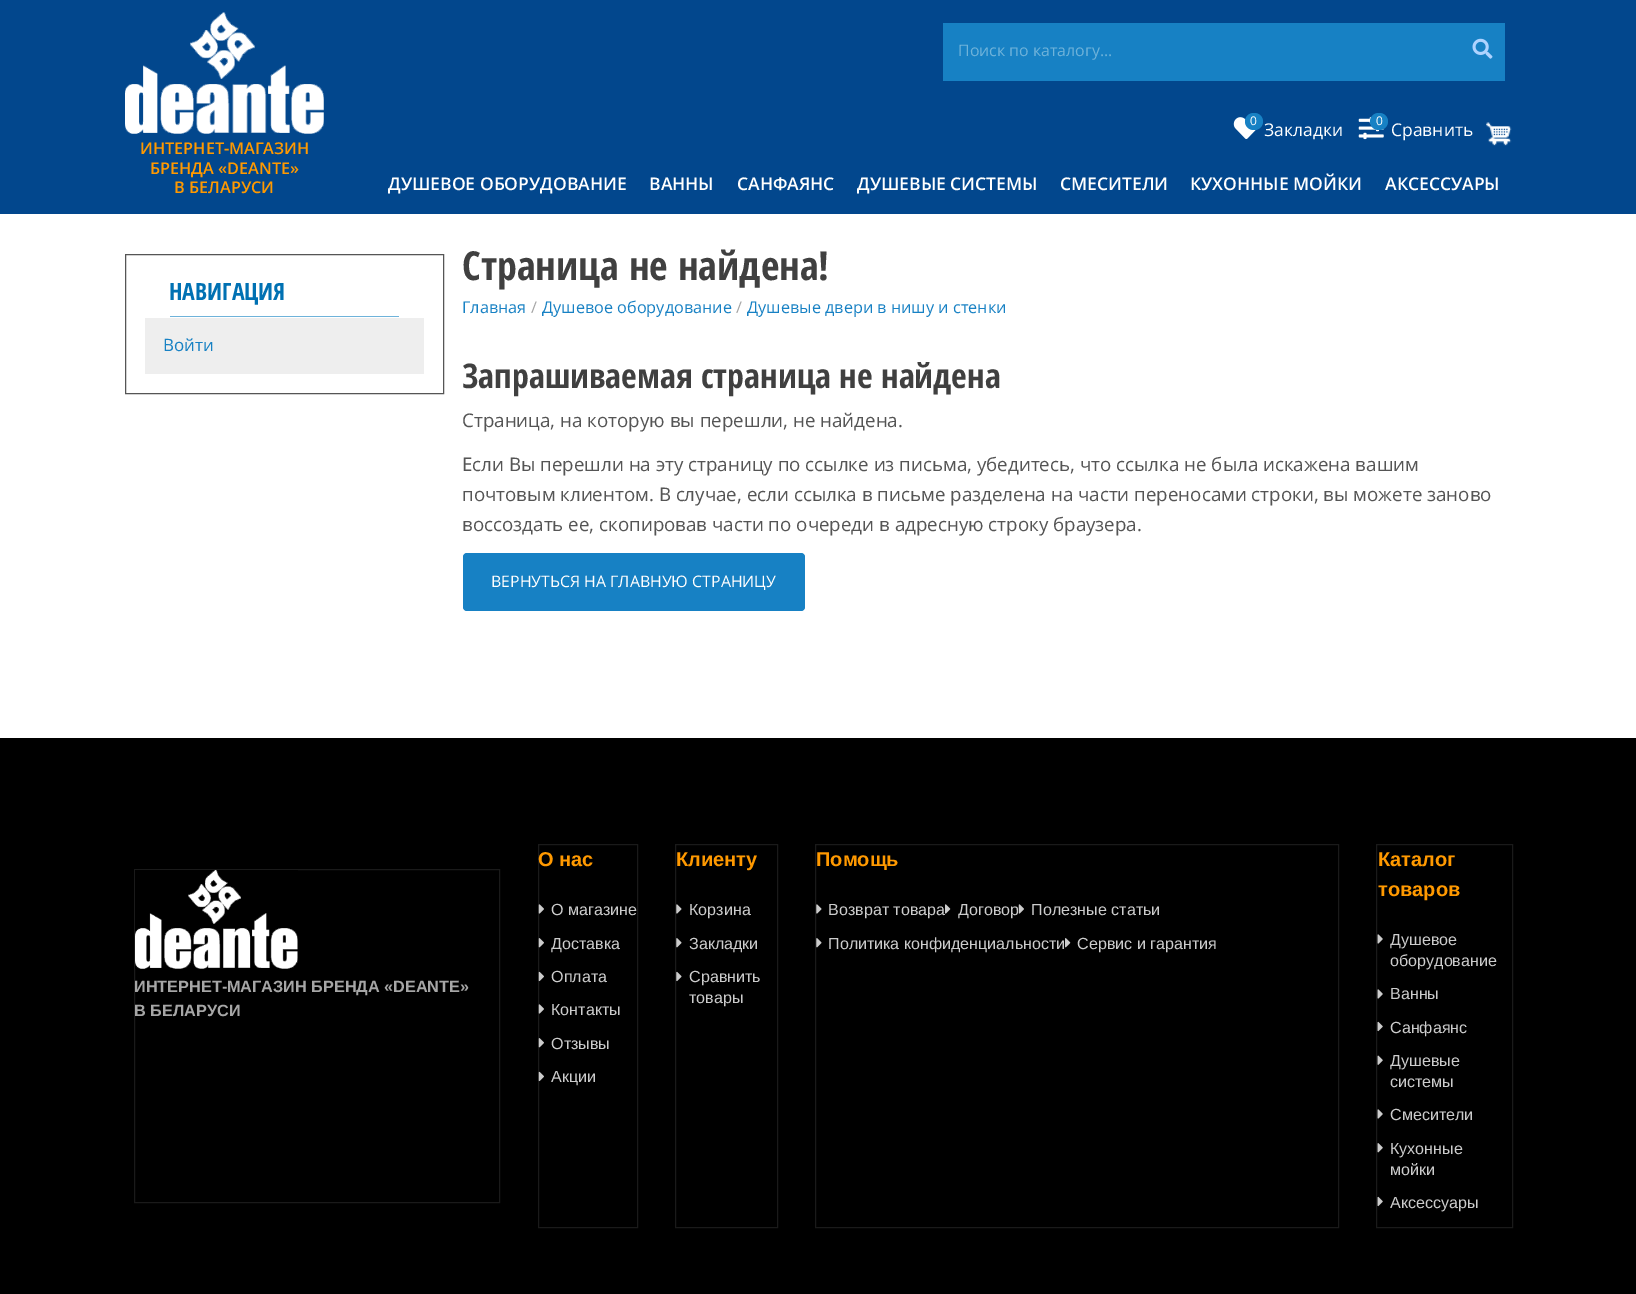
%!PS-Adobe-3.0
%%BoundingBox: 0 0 1636 1294
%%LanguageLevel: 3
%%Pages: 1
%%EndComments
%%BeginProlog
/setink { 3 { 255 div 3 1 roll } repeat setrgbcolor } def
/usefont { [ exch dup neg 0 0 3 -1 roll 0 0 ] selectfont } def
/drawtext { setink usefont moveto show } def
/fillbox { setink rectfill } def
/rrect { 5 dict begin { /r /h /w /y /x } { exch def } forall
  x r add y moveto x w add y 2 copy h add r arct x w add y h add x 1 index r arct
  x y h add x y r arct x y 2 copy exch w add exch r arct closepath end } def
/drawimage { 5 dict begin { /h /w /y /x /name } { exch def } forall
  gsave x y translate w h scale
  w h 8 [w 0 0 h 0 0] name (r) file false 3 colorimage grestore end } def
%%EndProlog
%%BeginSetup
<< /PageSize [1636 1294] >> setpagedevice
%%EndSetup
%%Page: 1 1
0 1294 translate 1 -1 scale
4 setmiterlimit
0 0 1636 1294 255 255 255 fillbox
0 0 1636 214 2 71 141 fillbox
(assets/img1.rgb) 125 12 199 122 drawimage
(ИНТЕРНЕТ-МАГАЗИН) 140 154 /OpenSans-SemiBold 16.25 255 153 0 drawtext
(БРЕНДА «DEANTE») 150 174 /OpenSans-SemiBold 16.25 255 153 0 drawtext
(В БЕЛАРУСИ) 174 193 /OpenSans-SemiBold 16.25 255 153 0 drawtext
943 23 562 58 23 129 196 fillbox
(Поиск по каталогу...) 958 56 /OpenSans-Regular 15.9 111 179 218 drawtext
(assets/img2.rgb) 1472 38 21 21 drawimage
(assets/img3.rgb) 1233 117 24 22 drawimage
23 129 196 setink
1245 113 18 17 8.5 rrect fill
(0) 1250 125 /OpenSans-Regular 12 255 255 255 drawtext
(Закладки) 1264 136 /OpenSans-Regular 17.5 255 255 255 drawtext
(assets/img4.rgb) 1358 117 26 23 drawimage
23 129 196 setink
1370 113 18 17 8.5 rrect fill
(0) 1376 125 /OpenSans-Regular 12 255 255 255 drawtext
(Сравнить) 1391 136 /OpenSans-Regular 17.5 255 255 255 drawtext
(assets/img5.rgb) 1486 122 26 24 drawimage
(ДУШЕВОЕ ОБОРУДОВАНИЕ) 388 190 /OpenSans-SemiBold 17.5 255 255 255 drawtext
(ВАННЫ) 649 190 /OpenSans-SemiBold 17.5 255 255 255 drawtext
(САНФАЯНС) 737 190 /OpenSans-SemiBold 17.5 255 255 255 drawtext
(ДУШЕВЫЕ СИСТЕМЫ) 857 190 /OpenSans-SemiBold 17.5 255 255 255 drawtext
(СМЕСИТЕЛИ) 1060 190 /OpenSans-SemiBold 17.5 255 255 255 drawtext
(КУХОННЫЕ МОЙКИ) 1190 190 /OpenSans-SemiBold 17.5 255 255 255 drawtext
(АКСЕССУАРЫ) 1385 190 /OpenSans-SemiBold 17.5 255 255 255 drawtext
85 85 85 setink
125.5 254.5 318 139 rectstroke
170 316 229 1 111 179 218 fillbox
(НАВИГАЦИЯ) 169 300 /OpenSansCondensed-Bold 23.75 0 113 179 drawtext
145 318 279 56 238 238 238 fillbox
(Войти) 163 351 /OpenSans-Regular 17 23 129 196 drawtext
(Страница не найдена!) 462 280 /OpenSansCondensed-Bold 40 64 64 64 drawtext
(Главная) 462 313 /OpenSans-Regular 16.25 23 129 196 drawtext
(/) 531 313 /OpenSans-Regular 16.25 166 166 166 drawtext
(Душевое оборудование) 542 313 /OpenSans-Regular 16.25 23 129 196 drawtext
(/) 736 313 /OpenSans-Regular 16.25 166 166 166 drawtext
(Душевые двери в нишу и стенки) 747 313 /OpenSans-Regular 16.25 23 129 196 drawtext
(Запрашиваемая страница не найдена) 462 388 /OpenSansCondensed-Bold 34 64 64 64 drawtext
(Страница, на которую вы перешли, не найдена.) 462 427 /OpenSans-Regular 18.75 85 85 85 drawtext
(Если Вы перешли на эту страницу по ссылке из письма, убедитесь, что ссылка не была искажена вашим) 462 471 /OpenSans-Regular 18.75 85 85 85 drawtext
(почтовым клиентом. В случае, если ссылка в письме разделена на части переносами строки, вы можете заново) 462 501 /OpenSans-Regular 18.75 85 85 85 drawtext
(воссоздать ее, скопировав части по очереди в адресную строку браузера.) 462 531 /OpenSans-Regular 18.75 85 85 85 drawtext
23 129 196 setink
463 553 342 58 4 rrect fill
(ВЕРНУТЬСЯ НА ГЛАВНУЮ СТРАНИЦУ) 491 587 /OpenSans-Regular 15.9 255 255 255 drawtext
0 738 1636 556 0 0 0 fillbox
26 26 26 setink
134.5 869.5 365 333 rectstroke
(assets/img6.rgb) 135 870 163 99 drawimage
(ИНТЕРНЕТ-МАГАЗИН БРЕНДА «DEANTE») 134 992 /LiberationSans-Bold 16.25 166 166 166 drawtext
(В БЕЛАРУСИ) 134 1016 /LiberationSans-Bold 16.25 166 166 166 drawtext
26 26 26 setink
538.5 844.5 99 383 rectstroke
(О нас) 538 866 /LiberationSans-Bold 20 255 153 0 drawtext
(assets/img7.rgb) 538 904 6 10 drawimage
(О магазине) 551 915 /LiberationSans-Regular 16.1 204 204 204 drawtext
(assets/img8.rgb) 538 938 6 10 drawimage
(Доставка) 551 949 /LiberationSans-Regular 16.1 204 204 204 drawtext
(assets/img9.rgb) 538 971 6 11 drawimage
(Оплата) 551 982 /LiberationSans-Regular 16.1 204 204 204 drawtext
(assets/img7.rgb) 538 1004 6 10 drawimage
(Контакты) 551 1015 /LiberationSans-Regular 16.1 204 204 204 drawtext
(assets/img8.rgb) 538 1038 6 10 drawimage
(Отзывы) 551 1049 /LiberationSans-Regular 16.1 204 204 204 drawtext
(assets/img9.rgb) 538 1071 6 11 drawimage
(Акции) 551 1082 /LiberationSans-Regular 16.1 204 204 204 drawtext
26 26 26 setink
675.5 844.5 102 383 rectstroke
(Клиенту) 676 866 /LiberationSans-Bold 20 255 153 0 drawtext
(assets/img10.rgb) 676 904 6 10 drawimage
(Корзина) 689 915 /LiberationSans-Regular 16.1 204 204 204 drawtext
(assets/img11.rgb) 676 938 6 10 drawimage
(Закладки) 689 949 /LiberationSans-Regular 16.1 204 204 204 drawtext
(assets/img12.rgb) 676 971 6 11 drawimage
(Сравнить) 689 982 /LiberationSans-Regular 16.1 204 204 204 drawtext
(товары) 689 1003 /LiberationSans-Regular 16.1 204 204 204 drawtext
26 26 26 setink
815.5 844.5 523 383 rectstroke
(Помощь) 816 866 /LiberationSans-Bold 20 255 153 0 drawtext
(assets/img10.rgb) 816 904 6 10 drawimage
(Возврат товара) 828 915 /LiberationSans-Regular 16.1 204 204 204 drawtext
(assets/img13.rgb) 945 904 6 10 drawimage
(Договор) 958 915 /LiberationSans-Regular 16.1 204 204 204 drawtext
(assets/img14.rgb) 1018 904 6 10 drawimage
(Полезные статьи) 1031 915 /LiberationSans-Regular 16.1 204 204 204 drawtext
(assets/img11.rgb) 816 938 6 10 drawimage
(Политика конфиденциальности) 828 949 /LiberationSans-Regular 16.1 204 204 204 drawtext
(assets/img15.rgb) 1065 938 6 10 drawimage
(Сервис и гарантия) 1077 949 /LiberationSans-Regular 16.1 204 204 204 drawtext
26 26 26 setink
1376.5 844.5 136 383 rectstroke
(Каталог) 1378 866 /LiberationSans-Bold 20 255 153 0 drawtext
(товаров) 1378 896 /LiberationSans-Bold 20 255 153 0 drawtext
(assets/img16.rgb) 1377 934 6 10 drawimage
(Душевое) 1390 945 /LiberationSans-Regular 16.1 204 204 204 drawtext
(оборудование) 1390 966 /LiberationSans-Regular 16.1 204 204 204 drawtext
(assets/img16.rgb) 1377 989 6 10 drawimage
(Ванны) 1390 999 /LiberationSans-Regular 16.1 204 204 204 drawtext
(assets/img17.rgb) 1377 1021 6 11 drawimage
(Санфаянс) 1390 1033 /LiberationSans-Regular 16.1 204 204 204 drawtext
(assets/img18.rgb) 1377 1055 6 10 drawimage
(Душевые) 1390 1066 /LiberationSans-Regular 16.1 204 204 204 drawtext
(системы) 1390 1087 /LiberationSans-Regular 16.1 204 204 204 drawtext
(assets/img16.rgb) 1377 1109 6 10 drawimage
(Смесители) 1390 1120 /LiberationSans-Regular 16.1 204 204 204 drawtext
(assets/img19.rgb) 1377 1143 6 10 drawimage
(Кухонные) 1390 1154 /LiberationSans-Regular 16.1 204 204 204 drawtext
(мойки) 1390 1175 /LiberationSans-Regular 16.1 204 204 204 drawtext
(assets/img17.rgb) 1377 1196 6 11 drawimage
(Аксессуары) 1390 1208 /LiberationSans-Regular 16.1 204 204 204 drawtext
showpage
%%EOF
